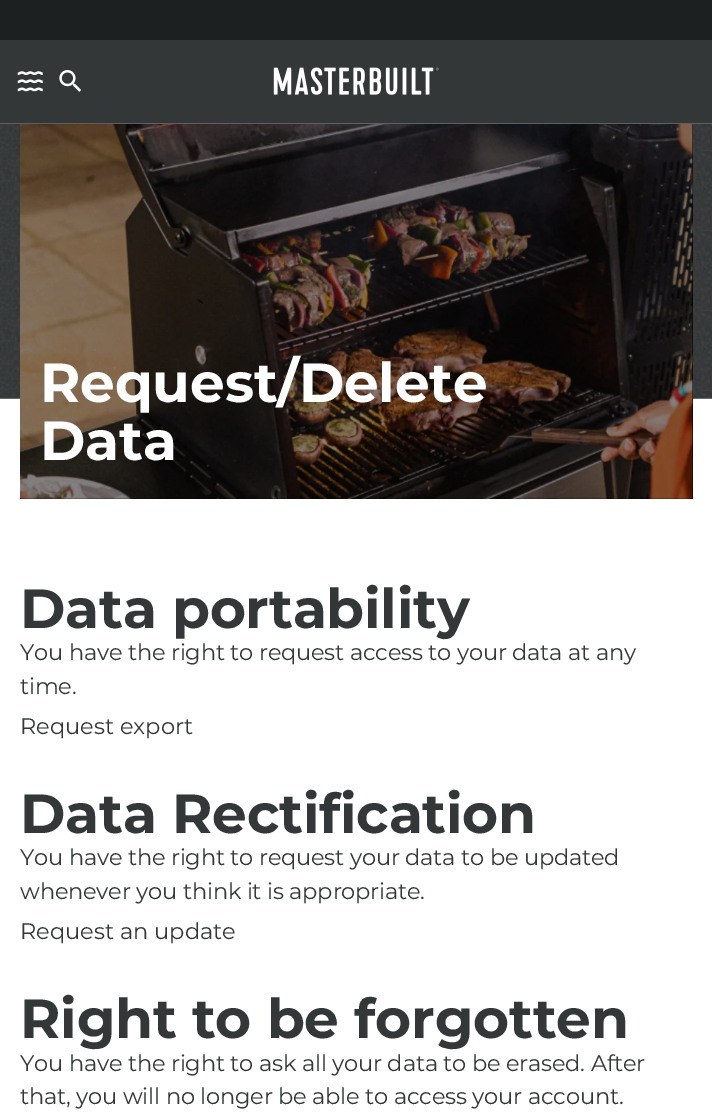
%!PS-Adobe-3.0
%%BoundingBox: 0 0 712 1118
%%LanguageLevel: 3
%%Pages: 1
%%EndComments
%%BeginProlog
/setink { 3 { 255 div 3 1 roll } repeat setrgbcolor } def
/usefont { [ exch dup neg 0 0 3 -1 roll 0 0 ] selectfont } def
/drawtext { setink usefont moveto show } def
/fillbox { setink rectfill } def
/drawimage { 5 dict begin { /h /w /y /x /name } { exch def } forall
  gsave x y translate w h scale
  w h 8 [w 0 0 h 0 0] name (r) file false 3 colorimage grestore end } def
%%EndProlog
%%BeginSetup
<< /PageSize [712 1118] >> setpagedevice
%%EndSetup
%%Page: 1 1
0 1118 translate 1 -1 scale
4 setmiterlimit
0 0 712 1118 255 255 255 fillbox
0 40 712 83 52 55 56 fillbox
0 0 712 40 29 32 33 fillbox
0 123 712 1 93 95 96 fillbox
(assets/img1.rgb) 17 71 26 21 drawimage
(assets/img2.rgb) 59 70 22 22 drawimage
(assets/img3.rgb) 273 67 166 28 drawimage
(assets/img4.rgb) 0 124 712 275 drawimage
20 124 673 375 0 0 0 fillbox
(assets/img5.rgb) 20 124 673 375 drawimage
/Montserrat-Bold 55 usefont
255 255 255 setink
40 402 moveto -0.2 0 (Request/Delete) ashow
40 460 moveto -0.2 0 (Data) ashow
52 55 56 setink
20 628 moveto -0.2 0 (Data portability) ashow
/Montserrat-Thin 22.5 usefont
20 660 moveto -0.2 0 (You have the right to request access to your data at any) ashow
20 694 moveto -0.2 0 (time.) ashow
(Request export) 20 734 /Montserrat-Thin 22.5 52 55 56 drawtext
/Montserrat-Bold 55 usefont
20 833 moveto -0.2 0 (Data Rectification) ashow
/Montserrat-Thin 22.5 usefont
20 865 moveto -0.2 0 (You have the right to request your data to be updated) ashow
20 899 moveto -0.2 0 (whenever you think it is appropriate.) ashow
(Request an update) 20 939 /Montserrat-Thin 22.5 52 55 56 drawtext
/Montserrat-Bold 55 usefont
20 1038 moveto -0.2 0 (Right to be forgotten) ashow
/Montserrat-Thin 22.5 usefont
20 1071 moveto -0.2 0 (You have the right to ask all your data to be erased. After) ashow
20 1104 moveto -0.2 0 (that, you will no longer be able to access your account.) ashow
showpage
%%EOF
